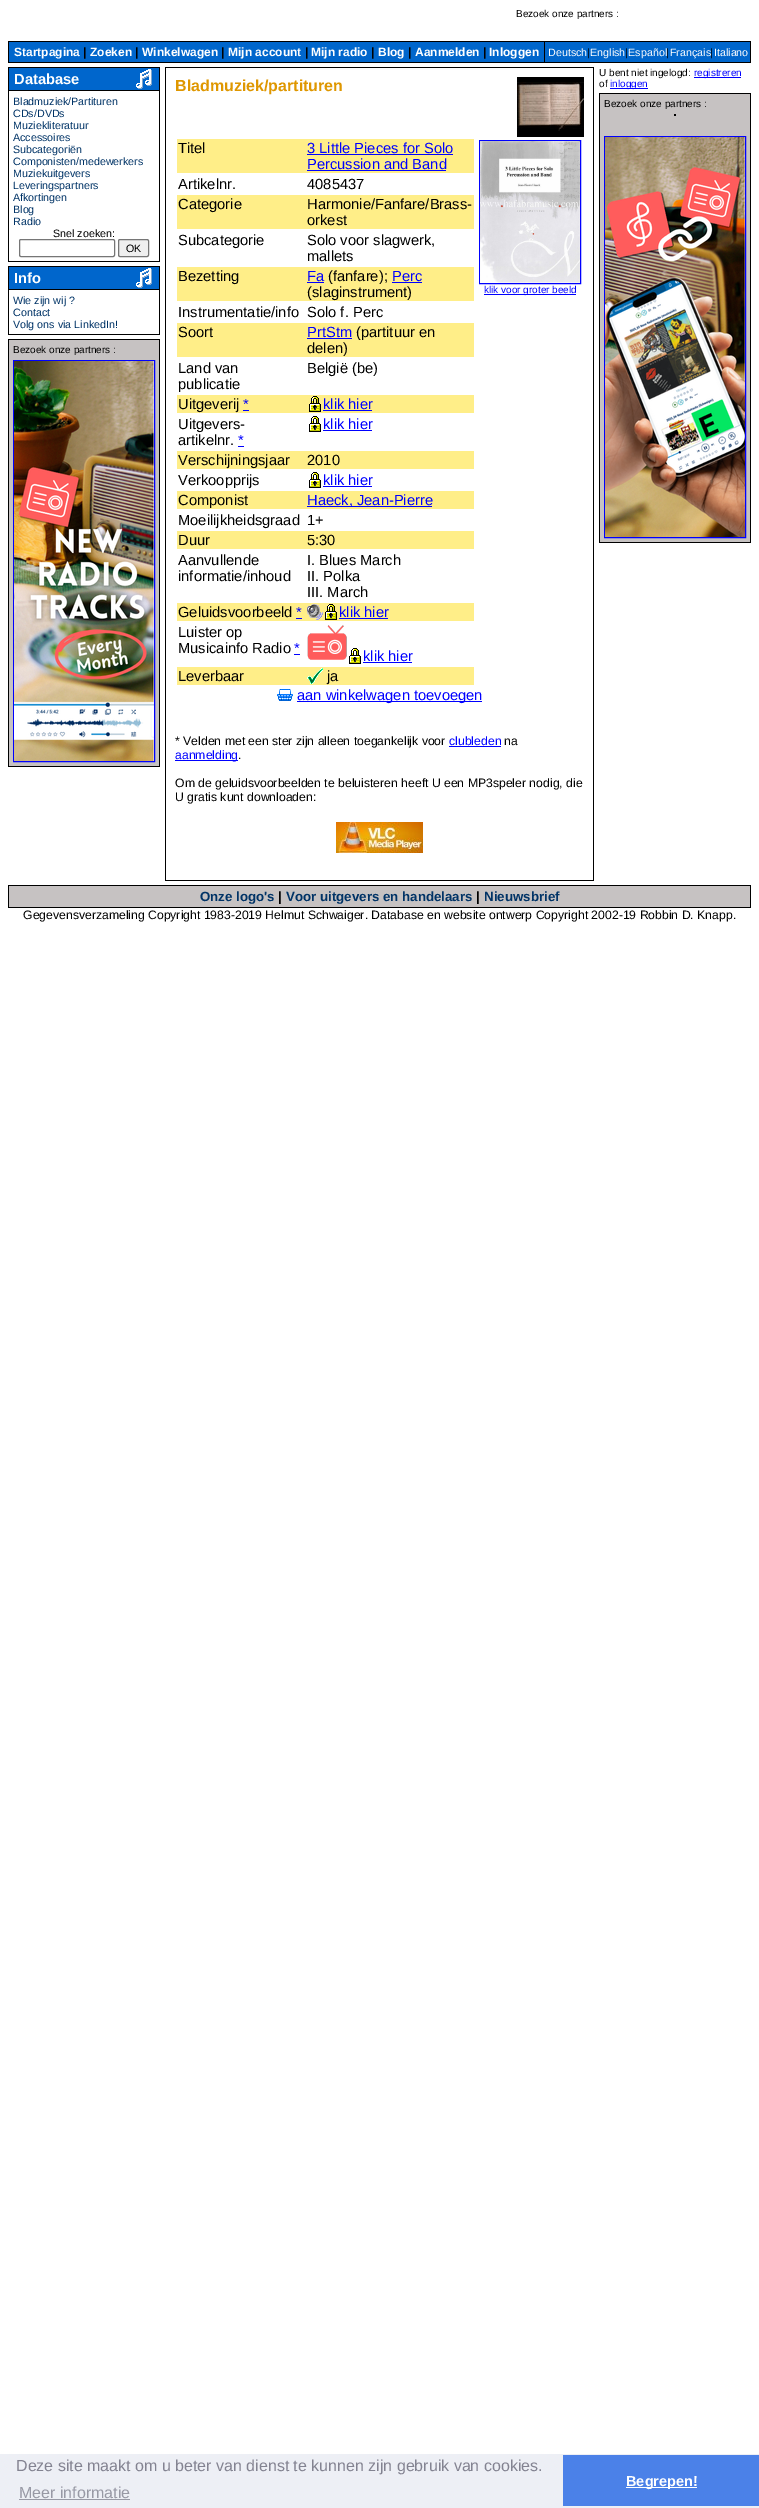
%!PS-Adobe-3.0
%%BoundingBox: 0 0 759 2508
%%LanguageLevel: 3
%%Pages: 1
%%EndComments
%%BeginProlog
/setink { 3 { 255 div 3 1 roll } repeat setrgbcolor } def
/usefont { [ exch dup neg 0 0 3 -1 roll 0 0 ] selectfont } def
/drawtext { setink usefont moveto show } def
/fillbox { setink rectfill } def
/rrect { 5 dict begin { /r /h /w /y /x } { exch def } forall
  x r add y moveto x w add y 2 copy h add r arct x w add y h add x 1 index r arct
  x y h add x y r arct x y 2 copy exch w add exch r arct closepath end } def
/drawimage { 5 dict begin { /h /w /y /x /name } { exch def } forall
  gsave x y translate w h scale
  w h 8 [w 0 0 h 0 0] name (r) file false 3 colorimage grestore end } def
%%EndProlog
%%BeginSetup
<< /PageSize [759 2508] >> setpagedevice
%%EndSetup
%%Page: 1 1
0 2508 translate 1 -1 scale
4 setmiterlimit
0 0 759 2508 255 255 255 fillbox
(Bezoek onze partners :) 516 17 /LiberationSans-Regular 10 0 0 0 drawtext
8 41 743 22 0 0 0 fillbox
9 42 535 20 0 102 204 fillbox
(Startpagina) 14 56 /LiberationSans-Bold 12 255 255 255 drawtext
(|) 83 56 /LiberationSans-Bold 12 0 0 0 drawtext
(Zoeken) 90 56 /LiberationSans-Bold 12 255 255 255 drawtext
(|) 135 56 /LiberationSans-Bold 12 0 0 0 drawtext
(Winkelwagen) 142 56 /LiberationSans-Bold 12 255 255 255 drawtext
(|) 221 56 /LiberationSans-Bold 12 0 0 0 drawtext
(Mijn account) 228 56 /LiberationSans-Bold 12 255 255 255 drawtext
(|) 305 56 /LiberationSans-Bold 12 0 0 0 drawtext
(Mijn radio) 311 56 /LiberationSans-Bold 12 255 255 255 drawtext
(|) 371 56 /LiberationSans-Bold 12 0 0 0 drawtext
(Blog) 378 56 /LiberationSans-Bold 12 255 255 255 drawtext
(|) 408 56 /LiberationSans-Bold 12 0 0 0 drawtext
(Aanmelden) 415 56 /LiberationSans-Bold 12 255 255 255 drawtext
(|) 483 56 /LiberationSans-Bold 12 0 0 0 drawtext
(Inloggen) 489 56 /LiberationSans-Bold 12 255 255 255 drawtext
545 42 205 20 0 102 204 fillbox
(Deutsch English Español Français Italiano) 548 56 /LiberationSans-Regular 10.7 255 255 255 drawtext
(|) 587 56 /LiberationSans-Regular 10.7 0 0 0 drawtext
(|) 625 56 /LiberationSans-Regular 10.7 0 0 0 drawtext
(|) 666 56 /LiberationSans-Regular 10.7 0 0 0 drawtext
(|) 710 56 /LiberationSans-Regular 10.7 0 0 0 drawtext
8 67 152 195 0 0 0 fillbox
9 68 150 22 0 102 204 fillbox
(Database) 14 84 /LiberationSans-Bold 14.7 255 255 255 drawtext
(assets/img1.rgb) 136 69 16 20 drawimage
9 91 150 170 255 255 255 fillbox
(Bladmuziek/Partituren) 13 105 /LiberationSans-Regular 10.7 0 51 102 drawtext
(CDs/DVDs) 13 117 /LiberationSans-Regular 10.7 0 51 102 drawtext
(Muziekliteratuur) 13 129 /LiberationSans-Regular 10.7 0 51 102 drawtext
(Accessoires) 13 141 /LiberationSans-Regular 10.7 0 51 102 drawtext
(Subcategoriën) 13 153 /LiberationSans-Regular 10.7 0 51 102 drawtext
(Componisten/medewerkers) 13 165 /LiberationSans-Regular 10.7 0 51 102 drawtext
(Muziekuitgevers) 13 177 /LiberationSans-Regular 10.7 0 51 102 drawtext
(Leveringspartners) 13 189 /LiberationSans-Regular 10.7 0 51 102 drawtext
(Afkortingen) 13 201 /LiberationSans-Regular 10.7 0 51 102 drawtext
(Blog) 13 213 /LiberationSans-Regular 10.7 0 51 102 drawtext
(Radio) 13 225 /LiberationSans-Regular 10.7 0 51 102 drawtext
(Snel zoeken:) 53 237 /LiberationSans-Regular 10.7 0 0 0 drawtext
118 118 118 setink
19.5 239.5 95 17 1.5 rrect stroke
239 239 239 setink
118.5 239.5 30 17 1.5 rrect gsave fill grestore
118 118 118 setink
stroke
(OK) 126 252 /LiberationSans-Regular 10.7 0 0 0 drawtext
8 266 152 69 0 0 0 fillbox
9 267 150 22 0 102 204 fillbox
(Info) 14 283 /LiberationSans-Bold 14.7 255 255 255 drawtext
(assets/img1.rgb) 136 268 16 20 drawimage
9 290 150 44 255 255 255 fillbox
(Wie zijn wij ?) 13 304 /LiberationSans-Regular 10.7 0 51 102 drawtext
(Contact) 13 316 /LiberationSans-Regular 10.7 0 51 102 drawtext
(Volg ons via LinkedIn!) 13 328 /LiberationSans-Regular 10.7 0 51 102 drawtext
8 339 152 428 0 0 0 fillbox
9 340 150 426 198 194 194 fillbox
(Bezoek onze partners :) 13 353 /LiberationSans-Regular 10 0 0 0 drawtext
0 0 255 setink
13.5 360.5 141 401 rectstroke
(assets/img2.rgb) 14 361 140 400 drawimage
165 67 429 814 0 0 0 fillbox
166 68 427 812 255 255 255 fillbox
(Bladmuziek/partituren) 175 91 /LiberationSans-Bold 16 223 151 0 drawtext
(assets/img3.rgb) 517 77 67 60 drawimage
177 139 297 34 255 238 136 fillbox
(Titel) 178 153 /LiberationSans-Regular 14.7 0 0 0 drawtext
(3 Little Pieces for Solo) 307 153 /LiberationSans-Regular 14.7 0 0 255 drawtext
307 154 146 1 0 0 255 fillbox
(Percussion and Band) 307 169 /LiberationSans-Regular 14.7 0 0 255 drawtext
307 170 139 1 0 0 255 fillbox
(Artikelnr.) 178 189 /LiberationSans-Regular 14.7 0 0 0 drawtext
(4085437) 307 189 /LiberationSans-Regular 14.7 0 0 0 drawtext
177 195 297 34 255 238 136 fillbox
(Categorie) 178 209 /LiberationSans-Regular 14.7 0 0 0 drawtext
(Harmonie/Fanfare/Brass-) 307 209 /LiberationSans-Regular 14.7 0 0 0 drawtext
(orkest) 307 225 /LiberationSans-Regular 14.7 0 0 0 drawtext
(Subcategorie) 178 245 /LiberationSans-Regular 14.7 0 0 0 drawtext
(Solo voor slagwerk,) 307 245 /LiberationSans-Regular 14.7 0 0 0 drawtext
(mallets) 307 261 /LiberationSans-Regular 14.7 0 0 0 drawtext
177 267 297 34 255 238 136 fillbox
(Bezetting) 178 281 /LiberationSans-Regular 14.7 0 0 0 drawtext
(Fa) 307 281 /LiberationSans-Regular 14.7 0 0 255 drawtext
307 282 17 1 0 0 255 fillbox
(\(fanfare\);) 328 281 /LiberationSans-Regular 14.7 0 0 0 drawtext
(Perc) 392 281 /LiberationSans-Regular 14.7 0 0 255 drawtext
392 282 30 1 0 0 255 fillbox
(\(slaginstrument\)) 307 297 /LiberationSans-Regular 14.7 0 0 0 drawtext
(Instrumentatie/info) 178 317 /LiberationSans-Regular 14.7 0 0 0 drawtext
(Solo f. Perc) 307 317 /LiberationSans-Regular 14.7 0 0 0 drawtext
177 323 297 34 255 238 136 fillbox
(Soort) 178 337 /LiberationSans-Regular 14.7 0 0 0 drawtext
(PrtStm) 307 337 /LiberationSans-Regular 14.7 0 0 255 drawtext
307 338 45 1 0 0 255 fillbox
(\(partituur en) 356 337 /LiberationSans-Regular 14.7 0 0 0 drawtext
(delen\)) 307 353 /LiberationSans-Regular 14.7 0 0 0 drawtext
(Land van) 178 373 /LiberationSans-Regular 14.7 0 0 0 drawtext
(publicatie) 178 389 /LiberationSans-Regular 14.7 0 0 0 drawtext
(België \(be\)) 307 373 /LiberationSans-Regular 14.7 0 0 0 drawtext
177 395 297 18 255 238 136 fillbox
(Uitgeverij) 178 409 /LiberationSans-Regular 14.7 0 0 0 drawtext
(*) 243 409 /LiberationSans-Regular 14.7 0 0 255 drawtext
243 410 6 1 0 0 255 fillbox
(assets/img4.rgb) 309 396 12 16 drawimage
(klik hier) 323 409 /LiberationSans-Regular 14.7 0 0 255 drawtext
323 410 49 1 0 0 255 fillbox
(Uitgevers-) 178 429 /LiberationSans-Regular 14.7 0 0 0 drawtext
(artikelnr.) 178 445 /LiberationSans-Regular 14.7 0 0 0 drawtext
(*) 238 445 /LiberationSans-Regular 14.7 0 0 255 drawtext
238 446 6 1 0 0 255 fillbox
(assets/img5.rgb) 309 416 12 16 drawimage
(klik hier) 323 429 /LiberationSans-Regular 14.7 0 0 255 drawtext
323 430 49 1 0 0 255 fillbox
177 451 297 18 255 238 136 fillbox
(Verschijningsjaar) 178 465 /LiberationSans-Regular 14.7 0 0 0 drawtext
(2010) 307 465 /LiberationSans-Regular 14.7 0 0 0 drawtext
(Verkoopprijs) 178 485 /LiberationSans-Regular 14.7 0 0 0 drawtext
(assets/img5.rgb) 309 472 12 16 drawimage
(klik hier) 323 485 /LiberationSans-Regular 14.7 0 0 255 drawtext
323 486 49 1 0 0 255 fillbox
177 491 297 18 255 238 136 fillbox
(Componist) 178 505 /LiberationSans-Regular 14.7 0 0 0 drawtext
307 506 125 1 0 0 255 fillbox
(Haeck, Jean-Pierre) 307 505 /LiberationSans-Regular 14.7 0 0 255 drawtext
(Moeilijkheidsgraad) 178 525 /LiberationSans-Regular 14.7 0 0 0 drawtext
(1+) 307 525 /LiberationSans-Regular 14.7 0 0 0 drawtext
177 531 297 18 255 238 136 fillbox
(Duur) 178 545 /LiberationSans-Regular 14.7 0 0 0 drawtext
(5:30) 307 545 /LiberationSans-Regular 14.7 0 0 0 drawtext
(Aanvullende) 178 565 /LiberationSans-Regular 14.7 0 0 0 drawtext
(informatie/inhoud) 178 581 /LiberationSans-Regular 14.7 0 0 0 drawtext
(I. Blues March) 307 565 /LiberationSans-Regular 14.7 0 0 0 drawtext
(II. Polka) 307 581 /LiberationSans-Regular 14.7 0 0 0 drawtext
(III. March) 307 597 /LiberationSans-Regular 14.7 0 0 0 drawtext
177 603 297 18 255 238 136 fillbox
(Geluidsvoorbeeld) 178 617 /LiberationSans-Regular 14.7 0 0 0 drawtext
(*) 296 617 /LiberationSans-Regular 14.7 0 0 255 drawtext
296 618 6 1 0 0 255 fillbox
(assets/img6.rgb) 307 604 16 16 drawimage
(assets/img4.rgb) 325 604 12 16 drawimage
(klik hier) 339 617 /LiberationSans-Regular 14.7 0 0 255 drawtext
339 618 49 1 0 0 255 fillbox
(Luister op) 178 637 /LiberationSans-Regular 14.7 0 0 0 drawtext
(Musicainfo Radio) 178 653 /LiberationSans-Regular 14.7 0 0 0 drawtext
(*) 294 653 /LiberationSans-Regular 14.7 0 0 255 drawtext
294 654 6 1 0 0 255 fillbox
(assets/img7.rgb) 307 625 40 35 drawimage
(assets/img5.rgb) 349 648 12 16 drawimage
(klik hier) 363 661 /LiberationSans-Regular 14.7 0 0 255 drawtext
363 662 49 1 0 0 255 fillbox
177 667 297 18 255 238 136 fillbox
(Leverbaar) 178 681 /LiberationSans-Regular 14.7 0 0 0 drawtext
(assets/img8.rgb) 307 668 16 16 drawimage
(ja) 327 681 /LiberationSans-Regular 14.7 0 0 0 drawtext
0 0 255 setink
479.5 140.5 101 143 rectstroke
(assets/img9.rgb) 480 141 100 142 drawimage
484 294 92 1 0 0 255 fillbox
(klik voor groter beeld) 484 293 /LiberationSans-Regular 10 0 0 255 drawtext
(assets/img10.rgb) 277 689 16 12 drawimage
297 701 185 1 0 0 255 fillbox
(aan winkelwagen toevoegen) 297 700 /LiberationSans-Regular 14.7 0 0 255 drawtext
(* Velden met een ster zijn alleen toegankelijk voor) 175 745 /LiberationSans-Regular 12.22 0 0 0 drawtext
(clubleden) 449 745 /LiberationSans-Regular 12.22 0 0 255 drawtext
449 746 52 1 0 0 255 fillbox
(na) 504 745 /LiberationSans-Regular 12.22 0 0 0 drawtext
175 760 63 1 0 0 255 fillbox
(aanmelding) 175 759 /LiberationSans-Regular 12.22 0 0 255 drawtext
(.) 238 759 /LiberationSans-Regular 12.22 0 0 0 drawtext
(Om de geluidsvoorbeelden te beluisteren heeft U een MP3speler nodig, die) 175 787 /LiberationSans-Regular 12.22 0 0 0 drawtext
(U gratis kunt downloaden:) 175 801 /LiberationSans-Regular 12.22 0 0 0 drawtext
(assets/img11.rgb) 336 822 87 31 drawimage
(U bent niet ingelogd:) 599 76 /LiberationSans-Regular 10 0 0 0 drawtext
694 77 47 1 0 0 255 fillbox
(registreren) 694 76 /LiberationSans-Regular 10 0 0 255 drawtext
(of) 599 87 /LiberationSans-Regular 10 0 0 0 drawtext
610 88 38 1 0 0 255 fillbox
(inloggen) 610 87 /LiberationSans-Regular 10 0 0 255 drawtext
599 93 152 450 0 0 0 fillbox
600 94 150 448 198 194 194 fillbox
(Bezoek onze partners :) 604 107 /LiberationSans-Regular 10 0 0 0 drawtext
674 114 2 1 0 0 0 fillbox
674 115 2 1 0 0 0 fillbox
0 0 255 setink
604.5 136.5 141 401 rectstroke
(assets/img12.rgb) 605 137 140 400 drawimage
8 885 743 23 0 0 0 fillbox
9 886 741 21 198 194 194 fillbox
(Onze logo's) 200 901 /LiberationSans-Bold 13.3 0 51 102 drawtext
(|) 278 901 /LiberationSans-Bold 13.3 0 0 0 drawtext
(Voor uitgevers en handelaars) 286 901 /LiberationSans-Bold 13.3 0 51 102 drawtext
(|) 476 901 /LiberationSans-Bold 13.3 0 0 0 drawtext
(Nieuwsbrief) 484 901 /LiberationSans-Bold 13.3 0 51 102 drawtext
(Gegevensverzameling Copyright 1983-2019 Helmut Schwaiger. Database en website ontwerp Copyright 2002-19 Robbin D. Knapp.) 23 919 /LiberationSans-Regular 12.22 0 0 0 drawtext
0 2454 759 54 237 239 245 fillbox
(Deze site maakt om u beter van dienst te kunnen zijn gebruik van cookies.) 16 2471 /LiberationSans-Regular 16 131 131 145 drawtext
(Meer informatie) 19 2498 /LiberationSans-Regular 16 152 153 165 drawtext
19 2499 111 1 152 153 165 fillbox
563 2455 196 51 75 129 232 fillbox
626 2487 71 1 255 255 255 fillbox
(Begrepen!) 626 2486 /LiberationSans-Bold 14.5 255 255 255 drawtext
showpage
%%EOF
